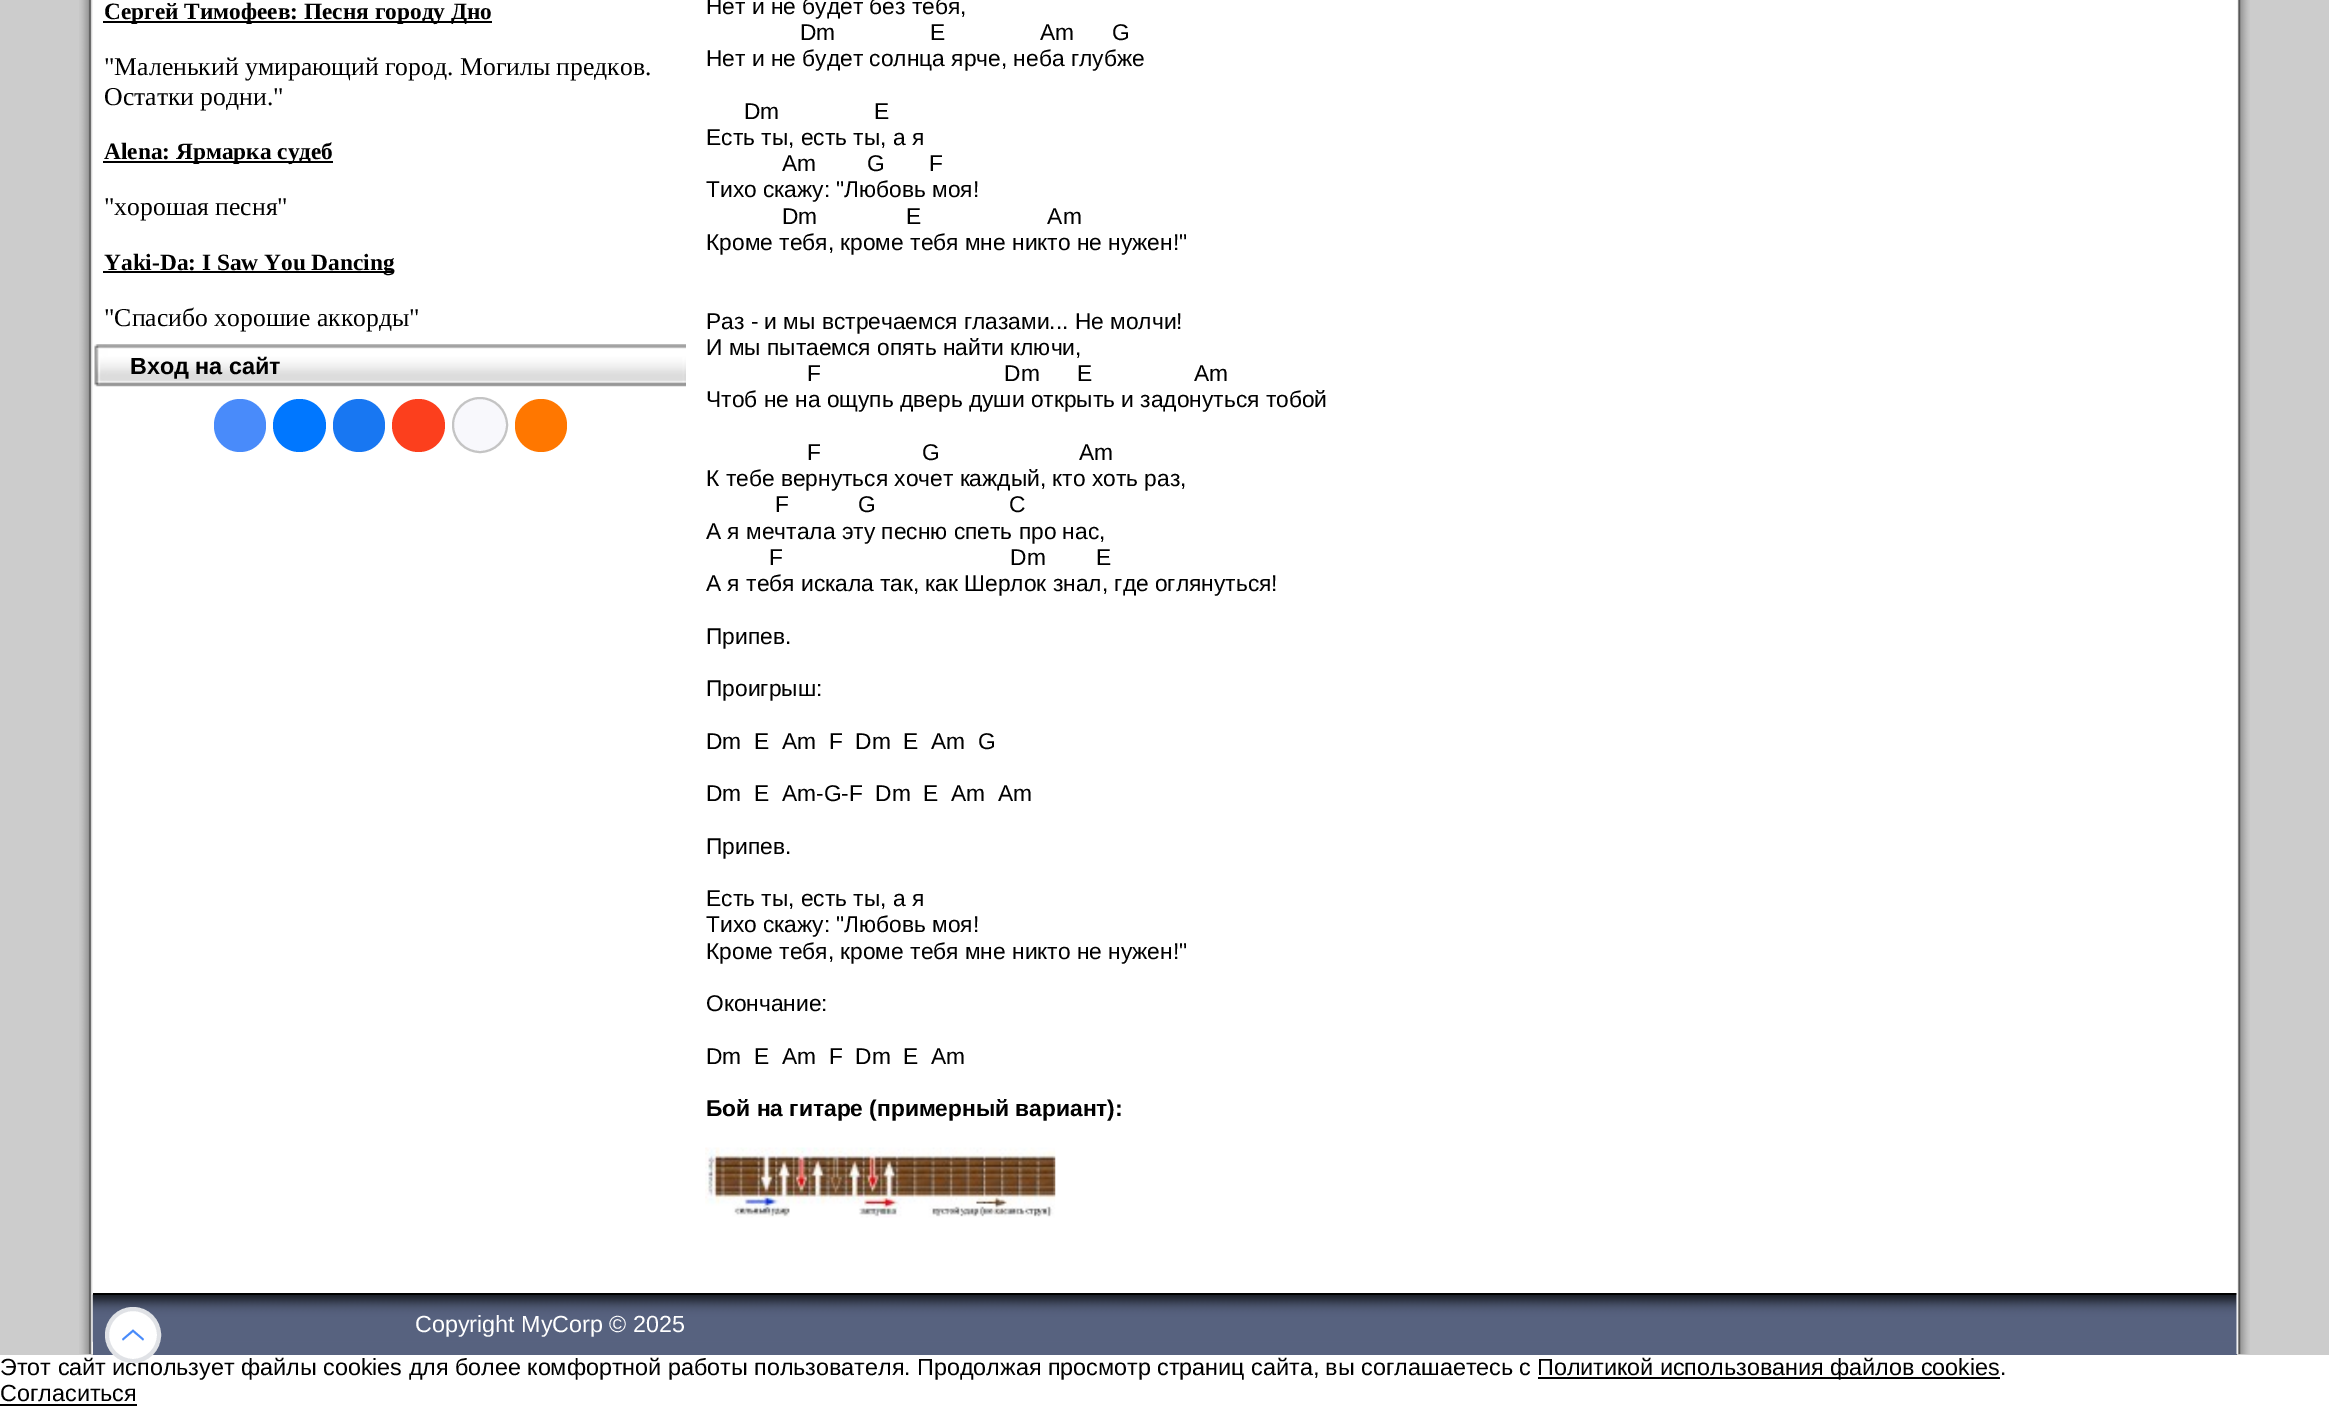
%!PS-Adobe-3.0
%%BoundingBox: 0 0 2329 1406
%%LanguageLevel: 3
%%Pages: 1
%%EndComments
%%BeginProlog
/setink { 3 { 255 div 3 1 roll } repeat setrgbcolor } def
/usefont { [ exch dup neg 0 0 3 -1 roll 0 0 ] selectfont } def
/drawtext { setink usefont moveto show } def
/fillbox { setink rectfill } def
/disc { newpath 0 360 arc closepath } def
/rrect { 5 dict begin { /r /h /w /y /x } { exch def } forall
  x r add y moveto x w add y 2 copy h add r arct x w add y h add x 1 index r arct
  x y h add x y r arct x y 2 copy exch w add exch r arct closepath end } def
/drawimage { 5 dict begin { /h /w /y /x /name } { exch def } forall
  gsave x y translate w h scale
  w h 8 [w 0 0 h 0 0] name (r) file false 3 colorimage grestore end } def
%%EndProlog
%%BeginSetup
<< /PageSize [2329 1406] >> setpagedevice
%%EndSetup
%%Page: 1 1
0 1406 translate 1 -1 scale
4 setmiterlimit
0 0 2329 1406 255 255 255 fillbox
0 0 93 1355 204 204 204 fillbox
(assets/img1.rgb) 79 0 14 1354 drawimage
103 21 389 2 0 0 0 fillbox
(Сергей Тимофеев: Песня городу Дно) 104 19 /LiberationSerif-Bold 23.33 0 0 0 drawtext
("Маленький умирающий город. Могилы предков.) 104 75 /LiberationSerif-Regular 25.7 0 0 0 drawtext
(Остатки родни.") 104 105 /LiberationSerif-Regular 25.7 0 0 0 drawtext
103 161 230 2 0 0 0 fillbox
(Alena: Ярмарка судеб) 104 159 /LiberationSerif-Bold 23.33 0 0 0 drawtext
("хорошая песня") 104 215 /LiberationSerif-Regular 25.7 0 0 0 drawtext
103 271 291 2 0 0 0 fillbox
(Yaki-Da: I Saw You Dancing) 104 270 /LiberationSerif-Bold 23.33 0 0 0 drawtext
("Спасибо хорошие аккорды") 104 326 /LiberationSerif-Regular 25.7 0 0 0 drawtext
(assets/img2.rgb) 94 344 592 43 drawimage
(Вход на сайт) 130 374 /LiberationSans-Bold 23.33 0 0 0 drawtext
73 139 250 setink
214 399 52 53 26 rrect fill
0 119 255 setink
299.5 425.5 26.5 disc fill
24 119 242 setink
333 399 52 53 26 rrect fill
252 63 29 setink
418.5 425.5 26.5 disc fill
248 248 252 setink
480 425 27 disc gsave fill grestore
196 196 196 setink
2 setlinewidth
stroke
255 119 0 setink
515 399 52 53 26 rrect fill
(Нет и не будет без тебя,) 706 14 /LiberationSans-Regular 22.75 0 0 0 drawtext
(Dm               E               Am      G) 800 40 /LiberationSans-Regular 22.75 0 0 0 drawtext
(Нет и не будет солнца ярче, неба глубже) 706 66 /LiberationSans-Regular 22.75 0 0 0 drawtext
(Dm               E) 744 119 /LiberationSans-Regular 22.75 0 0 0 drawtext
(Есть ты, есть ты, а я) 706 145 /LiberationSans-Regular 22.75 0 0 0 drawtext
(Am        G       F) 782 171 /LiberationSans-Regular 22.75 0 0 0 drawtext
(Тихо скажу: "Любовь моя!) 706 197 /LiberationSans-Regular 22.75 0 0 0 drawtext
(Dm              E                    Am) 782 224 /LiberationSans-Regular 22.75 0 0 0 drawtext
(Кроме тебя, кроме тебя мне никто не нужен!") 706 250 /LiberationSans-Regular 22.75 0 0 0 drawtext
(Раз - и мы встречаемся глазами... Не молчи!) 706 329 /LiberationSans-Regular 22.75 0 0 0 drawtext
(И мы пытаемся опять найти ключи,) 706 355 /LiberationSans-Regular 22.75 0 0 0 drawtext
(F                             Dm      E                Am) 807 381 /LiberationSans-Regular 22.75 0 0 0 drawtext
(Чтоб не на ощупь дверь души открыть и задонуться тобой) 706 407 /LiberationSans-Regular 22.75 0 0 0 drawtext
(F                G                      Am) 807 460 /LiberationSans-Regular 22.75 0 0 0 drawtext
(К тебе вернуться хочет каждый, кто хоть раз,) 706 486 /LiberationSans-Regular 22.75 0 0 0 drawtext
(F           G                     C) 775 512 /LiberationSans-Regular 22.75 0 0 0 drawtext
(А я мечтала эту песню спеть про нас,) 706 539 /LiberationSans-Regular 22.75 0 0 0 drawtext
(F                                    Dm        E) 769 565 /LiberationSans-Regular 22.75 0 0 0 drawtext
(А я тебя искала так, как Шерлок знал, где оглянуться!) 706 591 /LiberationSans-Regular 22.75 0 0 0 drawtext
(Припев.) 706 644 /LiberationSans-Regular 22.75 0 0 0 drawtext
(Проигрыш:) 706 696 /LiberationSans-Regular 22.75 0 0 0 drawtext
(Dm  E  Am  F  Dm  E  Am  G) 706 749 /LiberationSans-Regular 22.75 0 0 0 drawtext
(Dm  E  Am-G-F  Dm  E  Am  Am) 706 801 /LiberationSans-Regular 22.75 0 0 0 drawtext
(Припев.) 706 854 /LiberationSans-Regular 22.75 0 0 0 drawtext
(Есть ты, есть ты, а я) 706 906 /LiberationSans-Regular 22.75 0 0 0 drawtext
(Тихо скажу: "Любовь моя!) 706 932 /LiberationSans-Regular 22.75 0 0 0 drawtext
(Кроме тебя, кроме тебя мне никто не нужен!") 706 959 /LiberationSans-Regular 22.75 0 0 0 drawtext
(Окончание:) 706 1011 /LiberationSans-Regular 22.75 0 0 0 drawtext
(Dm  E  Am  F  Dm  E  Am) 706 1064 /LiberationSans-Regular 22.75 0 0 0 drawtext
(Бой на гитаре \(примерный вариант\):) 706 1116 /LiberationSans-Bold 22.75 0 0 0 drawtext
(assets/img3.rgb) 705 1147 351 71 drawimage
93 1295 2144 60 87 98 127 fillbox
(assets/img4.rgb) 92 1294 2145 48 drawimage
(Этот сайт использует файлы cookies для более комфортной работы пользователя. Продолжая просмотр страниц сайта, вы соглашаетесь с) 0 1375 /LiberationSans-Regular 23.33 0 0 0 drawtext
255 255 255 setink
133 1335 26 disc gsave fill grestore
224 226 230 setink
4 setlinewidth
stroke
73 139 250 setink
143 1340.5 moveto 133 1332 lineto 123 1340.5 lineto 122 1339 lineto 133 1329.5 lineto 144 1339 lineto closepath fill
93 1293 2144 2 0 0 0 fillbox
(Copyright MyCorp © 2025) 415 1332 /LiberationSans-Regular 23.33 255 255 255 drawtext
2237 0 92 1355 204 204 204 fillbox
(assets/img5.rgb) 2236 0 14 1354 drawimage
1538 1377 462 2 0 0 0 fillbox
(Политикой использования файлов cookies.) 1537 1375 /LiberationSans-Regular 23.33 0 0 0 drawtext
(Согласиться) 0 1401 /LiberationSans-Regular 23.33 0 0 0 drawtext
0 1404 137 2 0 0 0 fillbox
showpage
%%EOF
